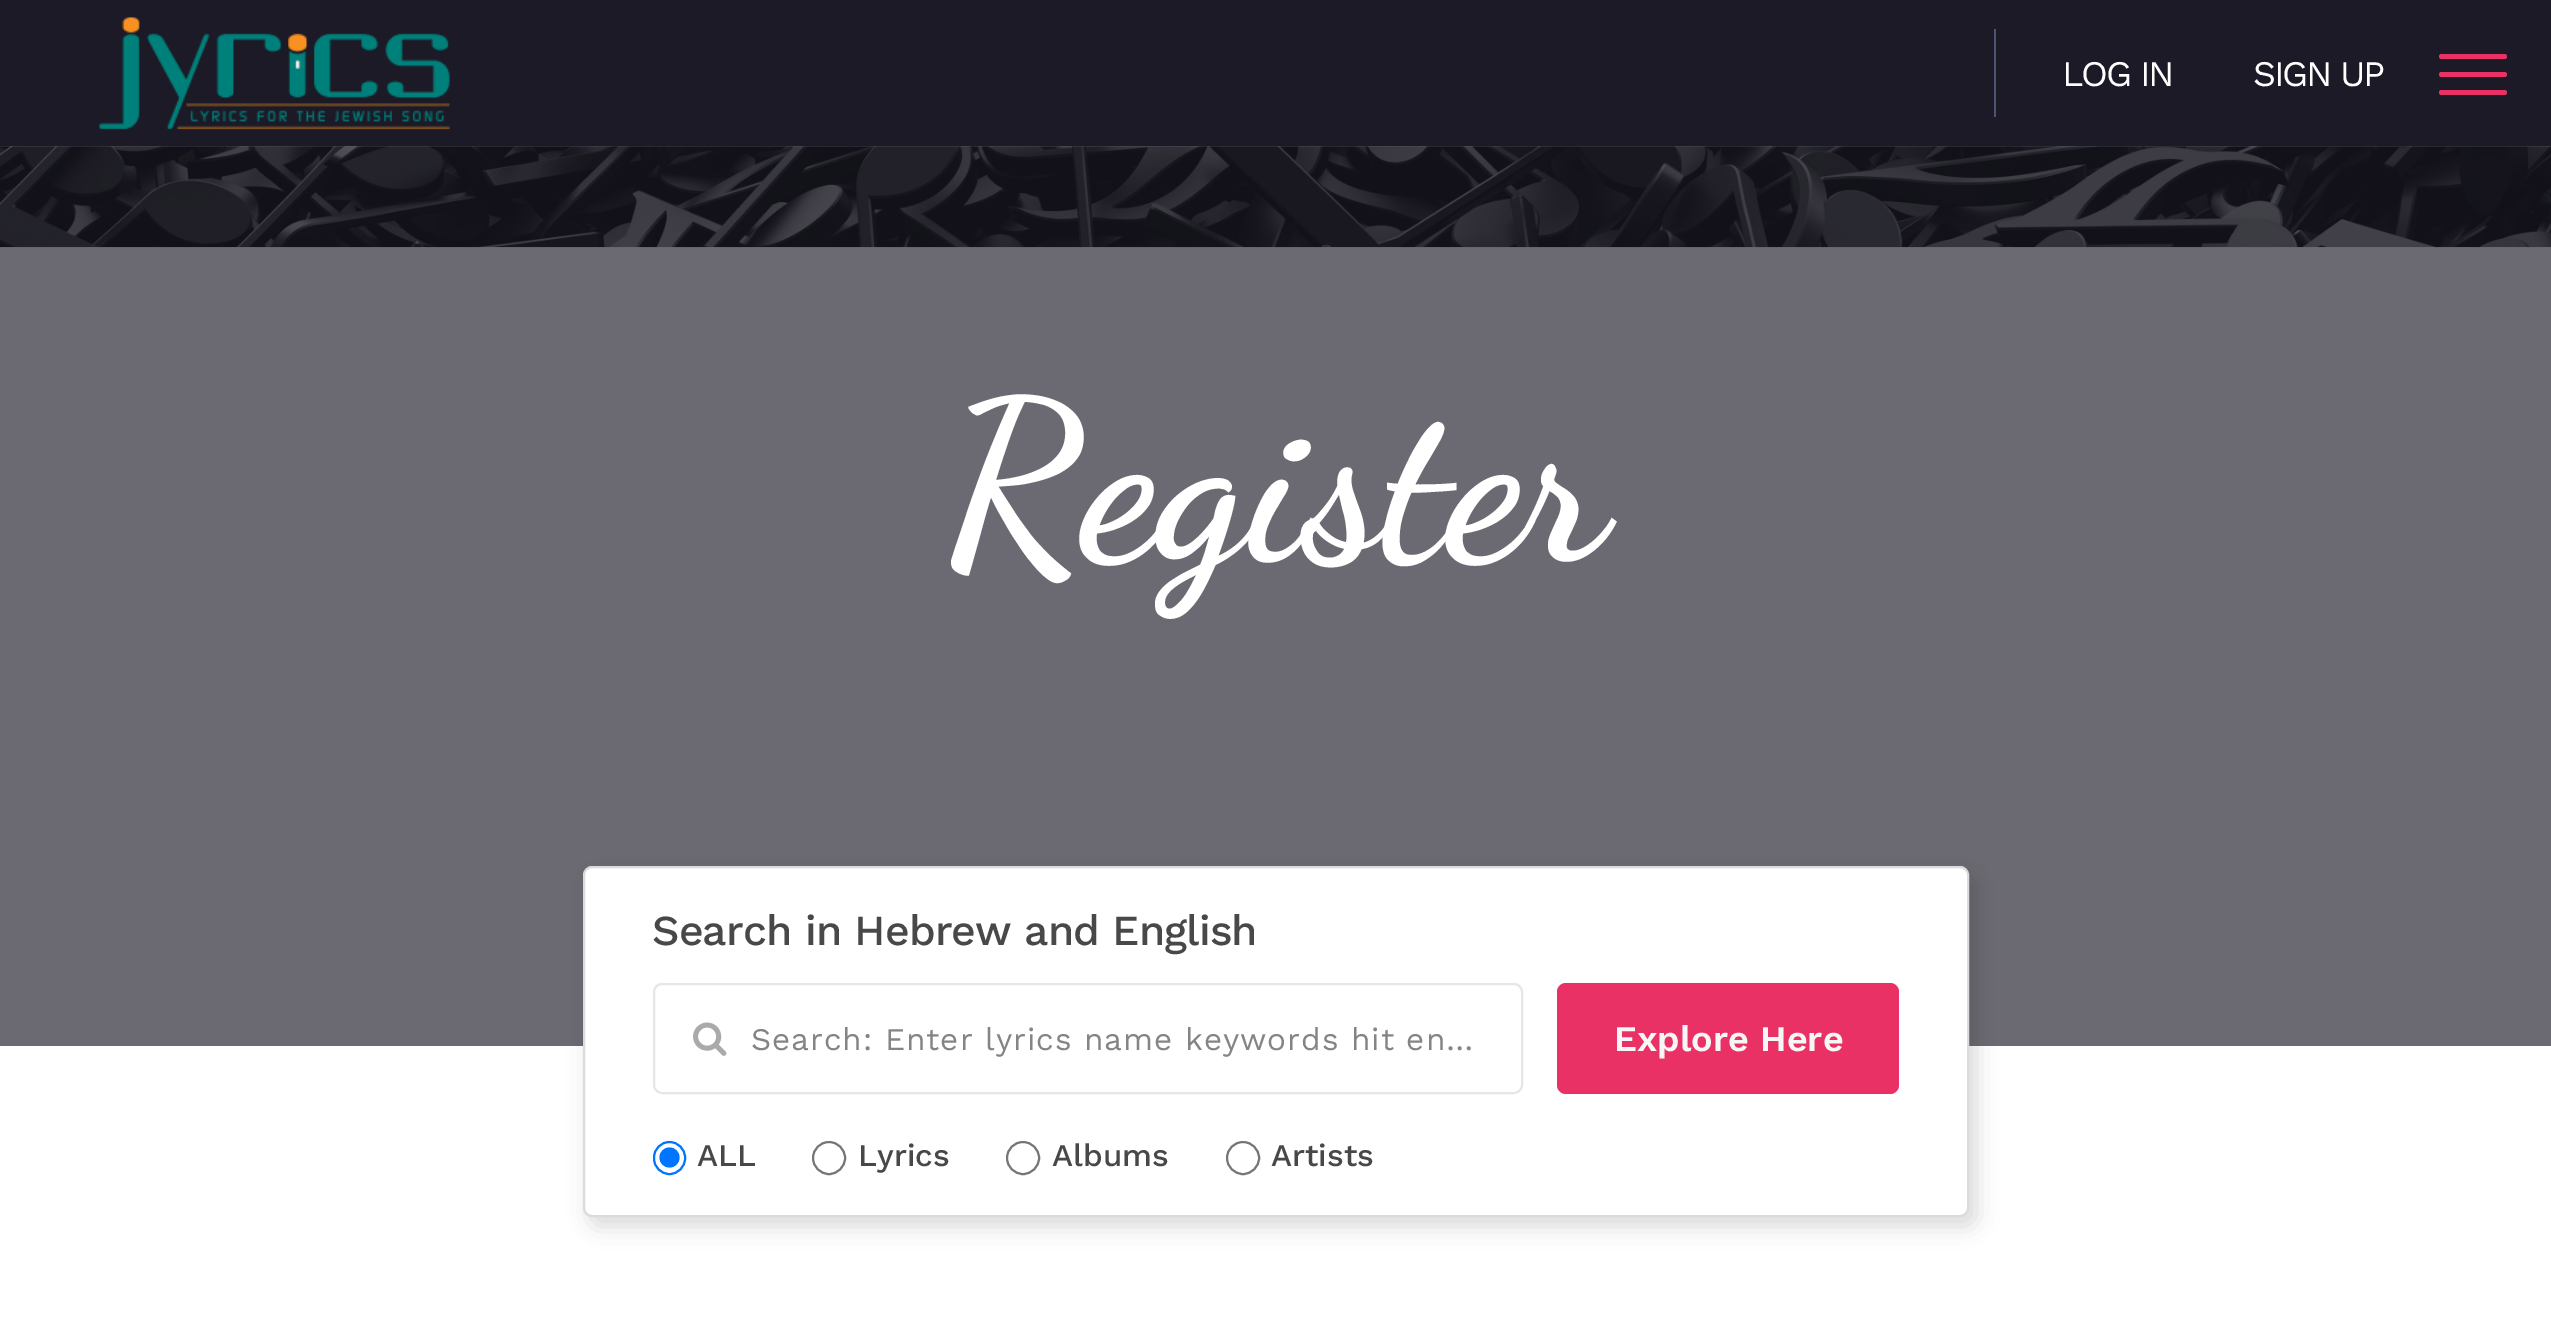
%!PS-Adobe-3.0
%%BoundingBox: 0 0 2551 1326
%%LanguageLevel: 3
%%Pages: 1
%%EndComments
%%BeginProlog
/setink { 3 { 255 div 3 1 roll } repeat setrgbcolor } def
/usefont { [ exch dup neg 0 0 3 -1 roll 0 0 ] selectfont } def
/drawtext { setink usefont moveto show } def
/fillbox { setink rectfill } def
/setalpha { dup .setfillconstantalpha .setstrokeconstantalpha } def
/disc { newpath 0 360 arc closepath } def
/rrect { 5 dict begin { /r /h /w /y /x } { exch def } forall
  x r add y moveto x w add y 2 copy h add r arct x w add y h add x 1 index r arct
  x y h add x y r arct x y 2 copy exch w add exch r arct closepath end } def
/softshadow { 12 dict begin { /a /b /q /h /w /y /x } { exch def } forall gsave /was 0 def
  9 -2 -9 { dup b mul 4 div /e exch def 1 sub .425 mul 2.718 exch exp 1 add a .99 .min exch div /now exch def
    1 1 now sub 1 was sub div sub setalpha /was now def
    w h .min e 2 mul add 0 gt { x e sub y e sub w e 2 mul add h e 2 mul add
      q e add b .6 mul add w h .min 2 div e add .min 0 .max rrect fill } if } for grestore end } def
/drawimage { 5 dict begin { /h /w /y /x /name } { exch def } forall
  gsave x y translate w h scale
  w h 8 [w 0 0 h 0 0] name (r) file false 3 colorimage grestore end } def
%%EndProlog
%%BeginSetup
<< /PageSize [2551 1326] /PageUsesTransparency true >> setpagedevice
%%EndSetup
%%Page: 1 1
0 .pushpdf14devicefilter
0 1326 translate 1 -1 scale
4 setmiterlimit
0 0 2551 1326 255 255 255 fillbox
0 146 2551 900 107 106 114 fillbox
0 0 2551 146 27 26 38 fillbox
(assets/img1.rgb) 99 17 351 113 drawimage
1994 29 2 88 78 82 115 fillbox
/WorkSans-Regular 36 usefont
255 255 255 setink
2062 86 moveto -2.25 0 (LOG IN) ashow
2253 86 moveto -2.25 0 (SIGN UP) ashow
(assets/img2.rgb) 0 146 2551 102 drawimage
(Register) 944 556 /DancingScript-Bold 225 255 255 255 drawtext
0 0 0 setink
590 875 1386 351 9 11 0.15 softshadow
255 255 255 setink
584 867 1384 349 8 rrect gsave fill grestore
219 219 219 setink
2 setlinewidth
stroke
/WorkSans-Medium 42.75 usefont
72 72 72 setink
652 945 moveto -0.85 0 (Search in Hebrew and English) ashow
230 230 230 setink
654 984 868 109 8 rrect stroke
(assets/img3.rgb) 693 1022 34 34 drawimage
/WorkSans-Regular 31.5 usefont
132 132 132 setink
751 1050 moveto 0.95 0 (Search: Enter lyrics name keywords hit en…) ashow
234 49 102 setink
1557 983 342 111 9 rrect fill
(Explore Here) 1614 1051 /WorkSans-SemiBold 36 246 246 246 drawtext
0 117 255 setink
654 1142 31 32 15.5 rrect stroke
669.5 1157.5 10 disc fill
(ALL) 697 1166 /WorkSans-Medium 31.5 72 72 72 drawtext
118 118 118 setink
829 1158 16 disc stroke
(Lyrics) 858 1166 /WorkSans-Medium 31.5 72 72 72 drawtext
118 118 118 setink
1023 1158 16 disc stroke
(Albums) 1052 1166 /WorkSans-Medium 31.5 72 72 72 drawtext
118 118 118 setink
1243 1158 16 disc stroke
(Artists) 1271 1166 /WorkSans-Medium 31.5 72 72 72 drawtext
234 49 102 setink
2439 54 68 5 2.5 rrect fill
2439 72 68 5 2.5 rrect fill
2439 90 68 5 2.5 rrect fill
.poppdf14devicefilter showpage
%%EOF
